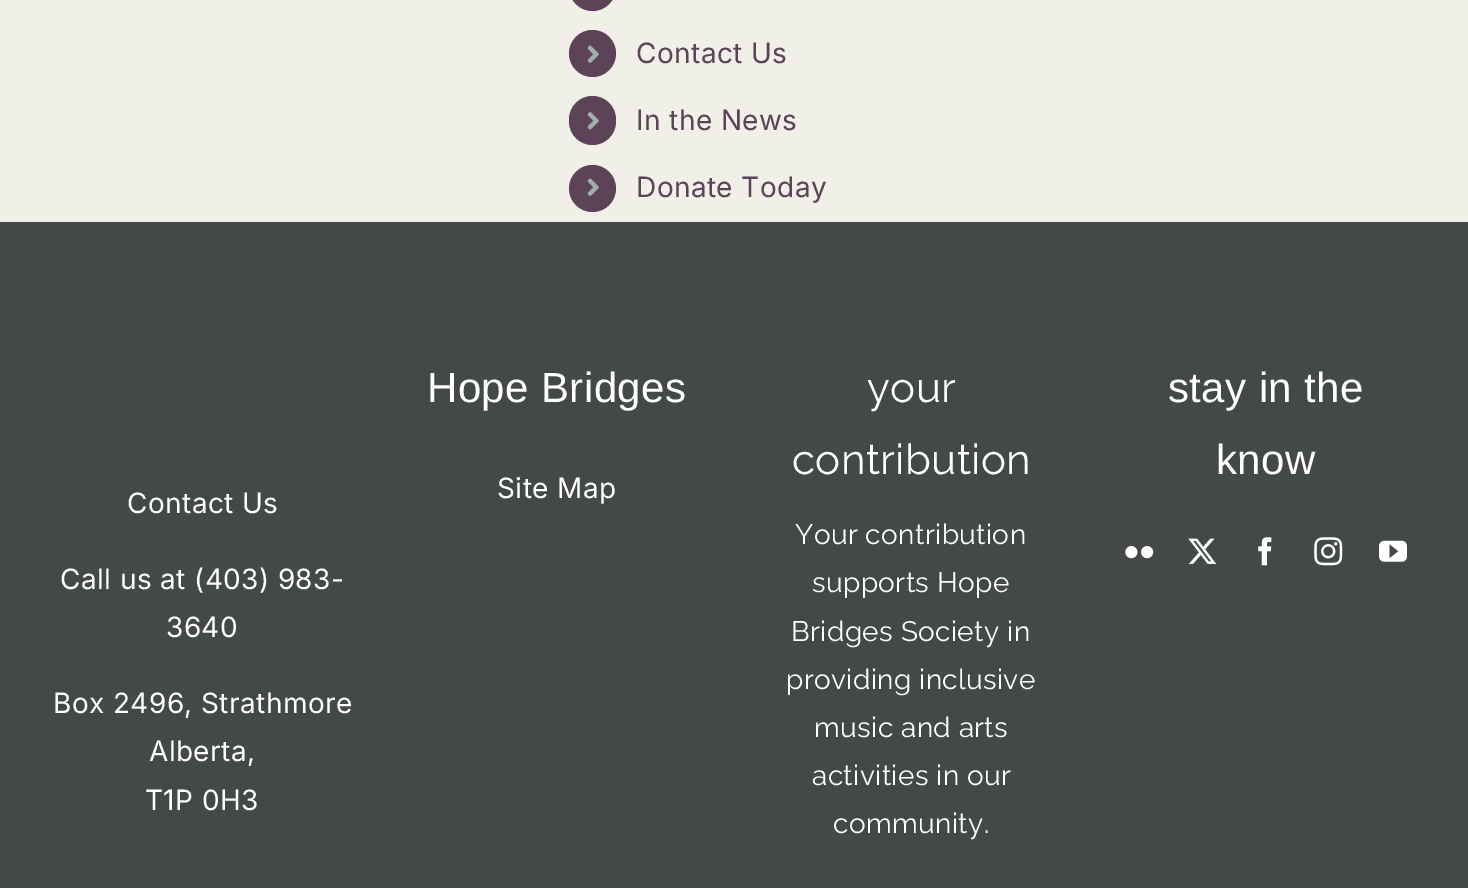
%!PS-Adobe-3.0
%%BoundingBox: 0 0 1468 888
%%LanguageLevel: 3
%%Pages: 1
%%EndComments
%%BeginProlog
/setink { 3 { 255 div 3 1 roll } repeat setrgbcolor } def
/usefont { [ exch dup neg 0 0 3 -1 roll 0 0 ] selectfont } def
/fillbox { setink rectfill } def
/disc { newpath 0 360 arc closepath } def
/rrect { 5 dict begin { /r /h /w /y /x } { exch def } forall
  x r add y moveto x w add y 2 copy h add r arct x w add y h add x 1 index r arct
  x y h add x y r arct x y 2 copy exch w add exch r arct closepath end } def
/drawimage { 5 dict begin { /h /w /y /x /name } { exch def } forall
  gsave x y translate w h scale
  w h 8 [w 0 0 h 0 0] name (r) file false 3 colorimage grestore end } def
%%EndProlog
%%BeginSetup
<< /PageSize [1468 888] >> setpagedevice
%%EndSetup
%%Page: 1 1
0 888 translate 1 -1 scale
4 setmiterlimit
0 0 1468 888 240 239 232 fillbox
92 67 87 setink
569 -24 47 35 23.5 rrect fill
592.5 53.5 23.5 disc fill
(assets/img1.rgb) 587 45 12 18 drawimage
/Inter-Regular 28 usefont
636 63 moveto 0.4 0 (Contact Us) ashow
569 96 47 49 23.5 rrect fill
(assets/img2.rgb) 587 112 12 18 drawimage
636 130 moveto 0.4 0 (In the News) ashow
592.5 188.5 23.5 disc fill
(assets/img1.rgb) 587 178 12 18 drawimage
636 197 moveto 0.4 0 (Donate Today) ashow
0 222 1468 666 68 72 72 fillbox
255 255 255 setink
127 513 moveto 0.4 0 (Contact Us) ashow
60 589 moveto 0.4 0 (Call us at \(403\) 983-) ashow
166 637 moveto 0.4 0 (3640) ashow
53 713 moveto 0.4 0 (Box 2496, Strathmore) ashow
149 761 moveto 0.4 0 (Alberta,) ashow
145 810 moveto 0.4 0 (T1P 0H3) ashow
/LiberationSans-Regular 42 usefont
427 402 moveto 0.4 0 (Hope Bridges) ashow
/Inter-Regular 28 usefont
497 498 moveto 0.4 0 (Site Map) ashow
/Raleway-Regular 42 usefont
867 402 moveto 0.4 0 (your) ashow
792 474 moveto 0.4 0 (contribution) ashow
/Raleway-Regular 28 usefont
795 544 moveto 0.4 0 (Your contribution) ashow
812 592 moveto 0.4 0 (supports Hope) ashow
791 641 moveto 0.4 0 (Bridges Society in) ashow
786 689 moveto 0.4 0 (providing inclusive) ashow
814 737 moveto 0.4 0 (music and arts) ashow
812 785 moveto 0.4 0 (activities in our) ashow
833 833 moveto 0.4 0 (community.) ashow
/LiberationSans-Regular 42 usefont
1168 402 moveto 0.4 0 (stay in the) ashow
1216 474 moveto 0.4 0 (know) ashow
(assets/img3.rgb) 1125 546 29 13 drawimage
(assets/img4.rgb) 1188 538 29 26 drawimage
(assets/img5.rgb) 1258 537 14 29 drawimage
(assets/img6.rgb) 1314 537 29 29 drawimage
(assets/img7.rgb) 1379 540 28 22 drawimage
showpage
%%EOF
